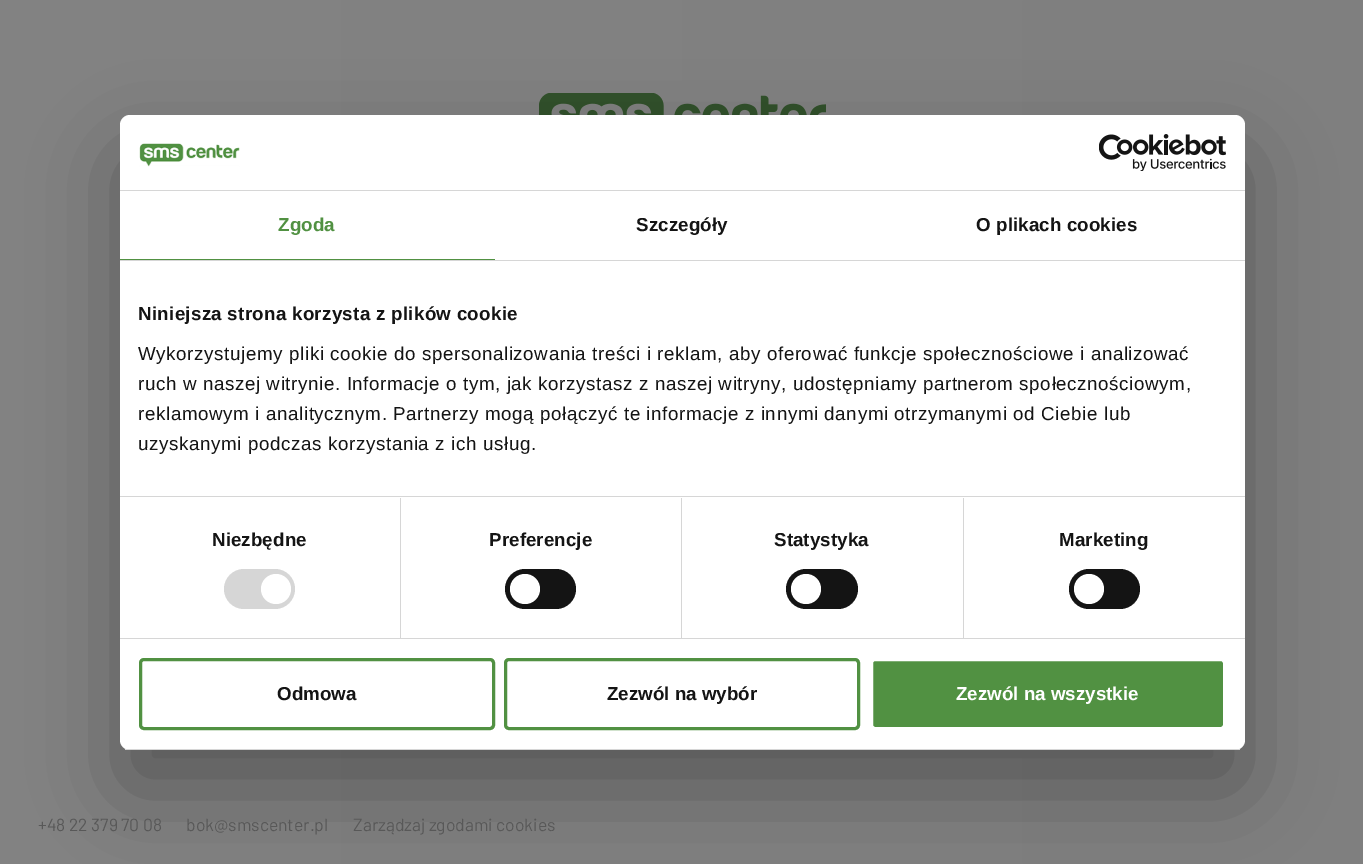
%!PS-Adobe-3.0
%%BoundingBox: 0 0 1363 864
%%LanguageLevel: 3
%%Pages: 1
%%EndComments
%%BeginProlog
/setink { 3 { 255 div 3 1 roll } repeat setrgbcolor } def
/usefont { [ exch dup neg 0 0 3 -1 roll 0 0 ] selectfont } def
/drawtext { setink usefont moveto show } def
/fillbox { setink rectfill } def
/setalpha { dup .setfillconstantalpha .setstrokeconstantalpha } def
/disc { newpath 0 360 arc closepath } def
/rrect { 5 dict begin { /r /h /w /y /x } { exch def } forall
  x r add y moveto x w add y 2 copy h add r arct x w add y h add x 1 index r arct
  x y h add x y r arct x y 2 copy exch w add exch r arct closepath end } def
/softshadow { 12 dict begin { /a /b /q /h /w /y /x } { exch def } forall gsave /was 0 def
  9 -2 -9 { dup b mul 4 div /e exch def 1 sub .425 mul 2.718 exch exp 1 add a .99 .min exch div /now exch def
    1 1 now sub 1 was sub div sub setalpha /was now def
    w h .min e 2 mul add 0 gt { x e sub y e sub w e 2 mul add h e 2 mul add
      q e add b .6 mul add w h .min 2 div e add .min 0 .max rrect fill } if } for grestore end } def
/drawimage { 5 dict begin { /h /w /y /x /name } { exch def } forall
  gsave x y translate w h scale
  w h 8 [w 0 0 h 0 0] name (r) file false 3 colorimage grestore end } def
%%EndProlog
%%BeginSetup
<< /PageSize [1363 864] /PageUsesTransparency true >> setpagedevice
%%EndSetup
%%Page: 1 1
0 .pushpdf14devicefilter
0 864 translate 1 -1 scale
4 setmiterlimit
0 0 1363 864 255 255 255 fillbox
gsave 0 0 moveto 1363 0 lineto 1363 864 lineto 0 864 lineto closepath clip newpath
<< /ShadingType 2 /ColorSpace /DeviceRGB /Coords [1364 432 0 432] /Extend [true true] /Function << /FunctionType 2 /Domain [0 1] /C0 [0.498 0.498 0.498] /C1 [0.514 0.514 0.514] /N 1 >> >> shfill grestore
(assets/img1.rgb) 539 93 287 22 drawimage
0 0 0 setink
120 155 1125 635 10 42.5 0.3 softshadow
255 255 255 setink
120 115 1125 635 10 rrect fill
120 190 1125 1 214 214 214 fillbox
(assets/img2.rgb) 139 143 101 24 drawimage
(assets/img3.rgb) 1099 134 127 37 drawimage
120 260 1125 1 214 214 214 fillbox
120 259 375 1 81 145 66 fillbox
/LiberationSans-Bold 18.75 usefont
278 231 moveto 0.1 0 (Zgoda) ashow
20 20 20 setink
636 231 moveto 0.1 0 (Szczegóły) ashow
976 231 moveto 0.1 0 (O plikach cookies) ashow
120 496 1125 1 214 214 214 fillbox
20 20 20 setink
138 320 moveto 0.3 0 (Niniejsza strona korzysta z plików cookie) ashow
/LiberationSans-Regular 18.75 usefont
138 360 moveto 0.62 0 (Wykorzystujemy pliki cookie do spersonalizowania treści i reklam, aby oferować funkcje społecznościowe i analizować) ashow
138 390 moveto 0.62 0 (ruch w naszej witrynie. Informacje o tym, jak korzystasz z naszej witryny, udostępniamy partnerom społecznościowym,) ashow
138 420 moveto 0.62 0 (reklamowym i analitycznym. Partnerzy mogą połączyć te informacje z innymi danymi otrzymanymi od Ciebie lub) ashow
138 450 moveto 0.62 0 (uzyskanymi podczas korzystania z ich usług.) ashow
120 638 1125 1 214 214 214 fillbox
400 498 1 140 214 214 214 fillbox
/LiberationSans-Bold 18.75 usefont
20 20 20 setink
212 546 moveto 0.1 0 (Niezbędne) ashow
214 214 214 setink
224 569 71 40 20 rrect fill
255 255 255 setink
276 589 15 disc fill
681 498 1 140 214 214 214 fillbox
20 20 20 setink
489 546 moveto 0.1 0 (Preferencje) ashow
505 569 71 40 20 rrect fill
255 255 255 setink
525 589 15 disc fill
963 498 1 140 214 214 214 fillbox
20 20 20 setink
774 546 moveto 0.1 0 (Statystyka) ashow
786 569 72 40 20 rrect fill
255 255 255 setink
806 589 15 disc fill
20 20 20 setink
1059 546 moveto 0.1 0 (Marketing) ashow
1069 569 71 40 20 rrect fill
255 255 255 setink
1089 589 15 disc fill
gsave
120 115 1125 635 10 rrect clip newpath
120 749 1125 1 214 214 214 fillbox
grestore
81 145 66 setink
3 setlinewidth
140.5 659.5 353 69 3.5 rrect stroke
(Odmowa) 277 700 /LiberationSans-Bold 18.75 20 20 20 drawtext
81 145 66 setink
505.5 659.5 353 69 3.5 rrect stroke
(Zezwól na wybór) 607 700 /LiberationSans-Bold 18.75 20 20 20 drawtext
81 145 66 setink
871.5 659.5 353 69 3.5 rrect gsave fill grestore
255 255 255 setink
stroke
(Zezwól na wszystkie) 956 700 /LiberationSans-Bold 18.75 255 255 255 drawtext
(+48 22 379 70 08) 38 831 /Barlow-Regular 17.5 88 88 88 drawtext
(bok@smscenter.pl) 186 831 /Barlow-Regular 17.5 88 88 88 drawtext
(Zarządzaj zgodami cookies) 353 831 /Barlow-Regular 17.5 88 88 88 drawtext
.poppdf14devicefilter showpage
%%EOF
